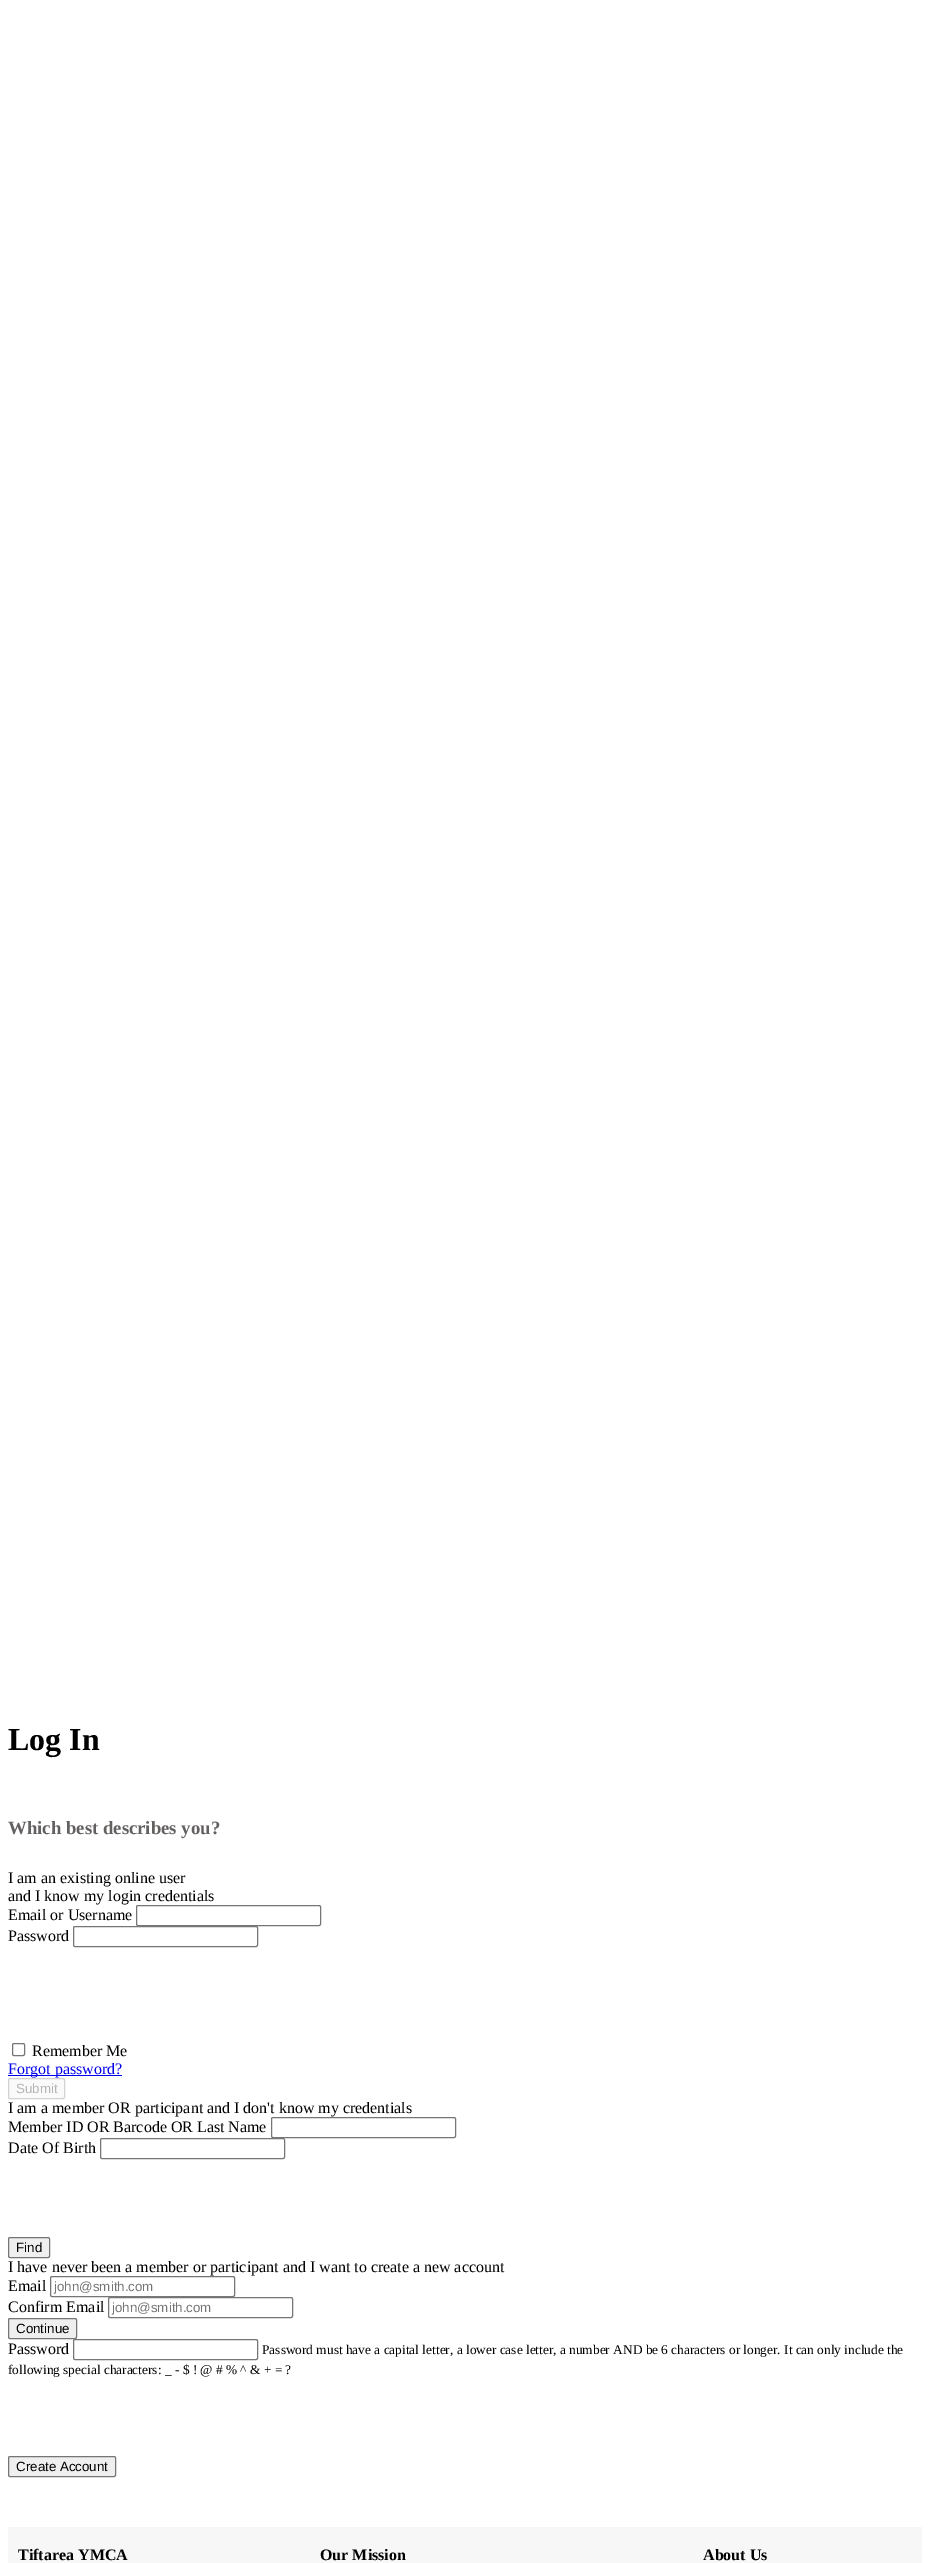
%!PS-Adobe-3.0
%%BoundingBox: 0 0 930 2563
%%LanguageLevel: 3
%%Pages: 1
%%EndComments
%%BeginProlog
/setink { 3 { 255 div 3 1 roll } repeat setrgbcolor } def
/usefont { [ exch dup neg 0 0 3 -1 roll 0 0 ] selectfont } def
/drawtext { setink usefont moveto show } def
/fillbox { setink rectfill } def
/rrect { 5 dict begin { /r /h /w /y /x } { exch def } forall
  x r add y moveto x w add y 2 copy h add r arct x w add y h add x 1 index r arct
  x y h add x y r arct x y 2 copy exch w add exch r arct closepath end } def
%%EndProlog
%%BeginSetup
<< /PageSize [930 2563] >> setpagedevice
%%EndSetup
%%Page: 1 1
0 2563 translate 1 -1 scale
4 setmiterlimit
0 0 930 2563 255 255 255 fillbox
(Log In) 8 1750 /LiberationSerif-Bold 32 0 0 0 drawtext
(Which best describes you?) 8 1834 /LiberationSerif-Bold 18.75 99 96 96 drawtext
(I am an existing online user) 8 1883 /LiberationSerif-Regular 16 0 0 0 drawtext
(and I know my login credentials) 8 1901 /LiberationSerif-Regular 16 0 0 0 drawtext
(Email or Username) 8 1920 /LiberationSerif-Regular 16 0 0 0 drawtext
118 118 118 setink
136.5 1905.5 184 20 1.5 rrect stroke
(Password) 8 1941 /LiberationSerif-Regular 16 0 0 0 drawtext
118 118 118 setink
73.5 1926.5 184 20 1.5 rrect stroke
12.5 2043.5 12 12 1.5 rrect stroke
(Remember Me) 32 2056 /LiberationSerif-Regular 16 0 0 0 drawtext
8 2075 114 1 0 0 238 fillbox
(Forgot password?) 8 2074 /LiberationSerif-Regular 16 0 0 238 drawtext
250 250 250 setink
8.5 2078.5 56 20 1.5 rrect gsave fill grestore
210 210 210 setink
stroke
(Submit) 16 2093 /LiberationSans-Regular 13.35 180 180 180 drawtext
(I am a member OR participant and I don't know my credentials) 8 2113 /LiberationSerif-Regular 16 0 0 0 drawtext
(Member ID OR Barcode OR Last Name) 8 2132 /LiberationSerif-Regular 16 0 0 0 drawtext
118 118 118 setink
271.5 2117.5 184 20 1.5 rrect stroke
(Date Of Birth) 8 2153 /LiberationSerif-Regular 16 0 0 0 drawtext
118 118 118 setink
100.5 2138.5 184 20 1.5 rrect stroke
239 239 239 setink
8.5 2237.5 41 20 1.5 rrect gsave fill grestore
118 118 118 setink
stroke
(Find) 16 2252 /LiberationSans-Regular 13.35 0 0 0 drawtext
(I have never been a member or participant and I want to create a new account) 8 2272 /LiberationSerif-Regular 16 0 0 0 drawtext
(Email) 8 2291 /LiberationSerif-Regular 16 0 0 0 drawtext
118 118 118 setink
50.5 2276.5 184 20 1.5 rrect stroke
(john@smith.com) 54 2291 /LiberationSans-Regular 13.35 117 117 117 drawtext
(Confirm Email) 8 2312 /LiberationSerif-Regular 16 0 0 0 drawtext
118 118 118 setink
108.5 2297.5 184 20 1.5 rrect stroke
(john@smith.com) 112 2312 /LiberationSans-Regular 13.35 117 117 117 drawtext
239 239 239 setink
8.5 2318.5 68 20 1.5 rrect gsave fill grestore
118 118 118 setink
stroke
(Continue) 16 2333 /LiberationSans-Regular 13.35 0 0 0 drawtext
(Password) 8 2354 /LiberationSerif-Regular 16 0 0 0 drawtext
118 118 118 setink
73.5 2339.5 184 20 1.5 rrect stroke
(Password must have a capital letter, a lower case letter, a number AND be 6 characters or longer. It can only include the) 262 2354 /LiberationSerif-Regular 13.35 0 0 0 drawtext
(following special characters: _ - $ ! @ # % ^ & + = ?) 8 2374 /LiberationSerif-Regular 13.35 0 0 0 drawtext
239 239 239 setink
8.5 2456.5 107 20 1.5 rrect gsave fill grestore
118 118 118 setink
stroke
(Create Account) 16 2471 /LiberationSans-Regular 13.35 0 0 0 drawtext
8 2527 914 36 247 247 247 fillbox
(Tiftarea YMCA) 18 2560 /LiberationSerif-Bold 16 0 0 0 drawtext
(Our Mission) 320 2560 /LiberationSerif-Bold 16 0 0 0 drawtext
(About Us) 703 2560 /LiberationSerif-Bold 16 0 0 0 drawtext
showpage
%%EOF
